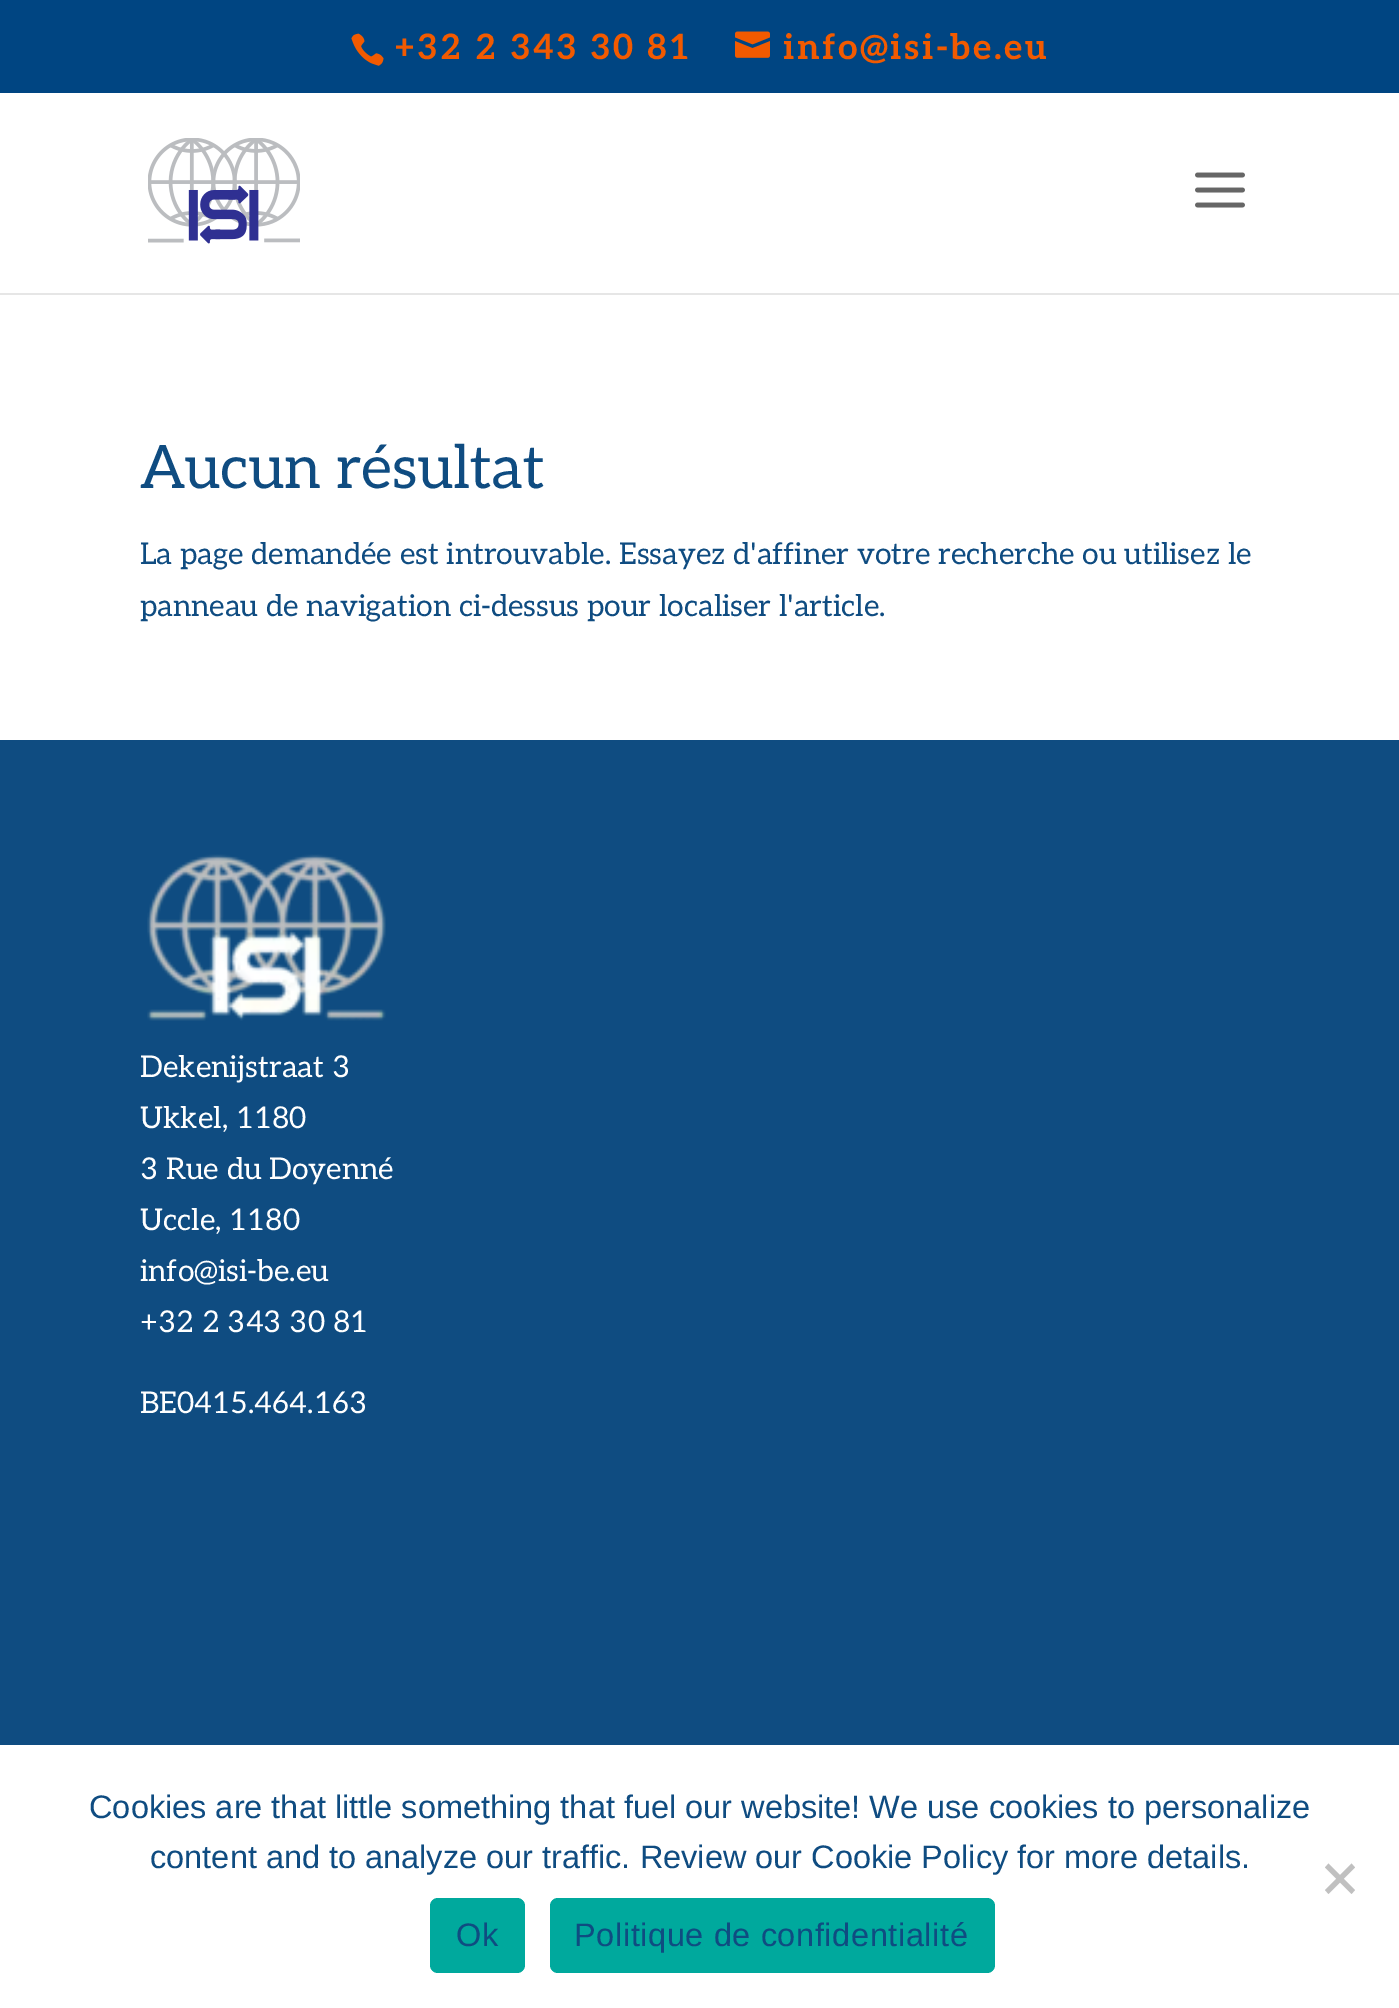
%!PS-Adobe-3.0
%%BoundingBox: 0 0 1399 2008
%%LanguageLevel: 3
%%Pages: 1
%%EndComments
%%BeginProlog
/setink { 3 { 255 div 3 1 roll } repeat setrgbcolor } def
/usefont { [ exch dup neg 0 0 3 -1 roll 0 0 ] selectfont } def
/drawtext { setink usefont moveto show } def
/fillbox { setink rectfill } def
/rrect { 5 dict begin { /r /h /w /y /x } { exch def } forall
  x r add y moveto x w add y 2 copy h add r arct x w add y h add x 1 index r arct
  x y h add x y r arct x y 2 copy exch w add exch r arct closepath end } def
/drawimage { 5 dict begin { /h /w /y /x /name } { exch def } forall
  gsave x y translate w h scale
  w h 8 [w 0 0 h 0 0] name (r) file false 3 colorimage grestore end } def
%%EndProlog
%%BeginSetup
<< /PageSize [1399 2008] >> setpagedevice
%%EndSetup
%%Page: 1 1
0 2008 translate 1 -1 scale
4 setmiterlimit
0 0 1399 2008 255 255 255 fillbox
0 0 1399 93 0 69 130 fillbox
(assets/img1.rgb) 351 33 33 33 drawimage
/Aleo-Bold 35 usefont
242 90 0 setink
394 59 moveto 2.5 0 (+32 2 343 30 81) ashow
(assets/img2.rgb) 735 31 35 27 drawimage
783 59 moveto 2.5 0 (info@isi-be.eu) ashow
0 293 1399 2 230 230 230 fillbox
(assets/img3.rgb) 148 138 152 106 drawimage
(assets/img4.rgb) 1195 172 50 36 drawimage
(Aucun résultat) 140 488 /Aleo-Regular 60 15 76 129 drawtext
(La page demandée est introuvable. Essayez d'affiner votre recherche ou utilisez le) 140 564 /Aleo-Regular 30 15 76 129 drawtext
(panneau de navigation ci-dessus pour localiser l'article.) 140 616 /Aleo-Regular 30 15 76 129 drawtext
0 740 1399 1005 15 76 129 fillbox
(assets/img5.rgb) 147 854 239 167 drawimage
(Dekenijstraat 3) 140 1077 /Aleo-Regular 30 255 255 255 drawtext
(Ukkel, 1180) 140 1128 /Aleo-Regular 30 255 255 255 drawtext
(3 Rue du Doyenné) 140 1179 /Aleo-Regular 30 255 255 255 drawtext
(Uccle, 1180) 140 1230 /Aleo-Regular 30 255 255 255 drawtext
(info@isi-be.eu) 140 1281 /Aleo-Regular 30 255 255 255 drawtext
(+32 2 343 30 81) 140 1332 /Aleo-Regular 30 255 255 255 drawtext
(BE0415.464.163) 140 1413 /Aleo-Regular 30 255 255 255 drawtext
(Cookies are that little something that fuel our website! We use cookies to personalize) 89 1818 /LiberationSans-Regular 32.5 15 76 129 drawtext
(content and to analyze our traffic. Review our Cookie Policy for more details.) 150 1868 /LiberationSans-Regular 32.5 15 76 129 drawtext
192 192 192 setink
1351.5 1863.5 moveto 1355 1867.5 lineto 1328.5 1894 lineto 1325 1890 lineto closepath fill
1325 1867.5 moveto 1328.5 1863.5 lineto 1355 1890 lineto 1351.5 1894 lineto closepath fill
0 169 157 setink
430 1898 95 75 8 rrect fill
15 76 129 setink
456 1946 moveto 0.6 0 (Ok) ashow
0 169 157 setink
550 1898 445 75 8 rrect fill
15 76 129 setink
574 1946 moveto 0.6 0 (Politique de confidentialité) ashow
showpage
%%EOF
